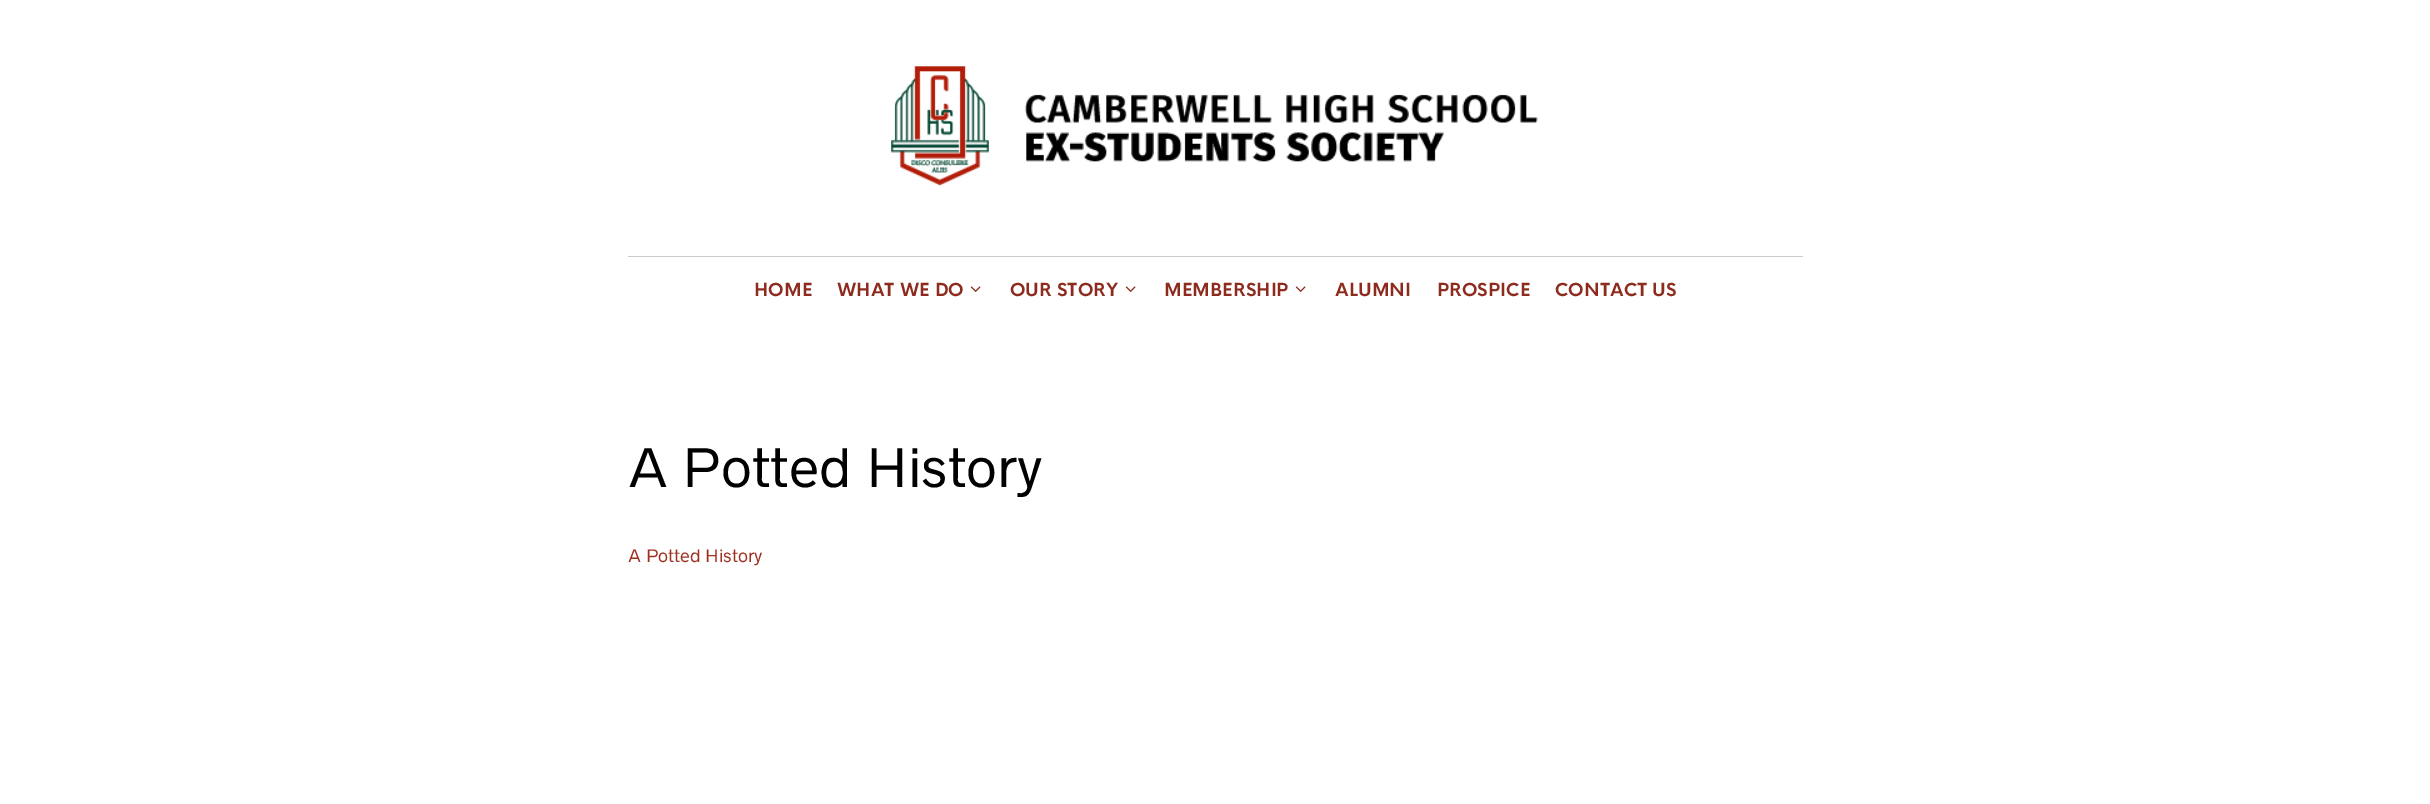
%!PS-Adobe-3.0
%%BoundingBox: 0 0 2430 804
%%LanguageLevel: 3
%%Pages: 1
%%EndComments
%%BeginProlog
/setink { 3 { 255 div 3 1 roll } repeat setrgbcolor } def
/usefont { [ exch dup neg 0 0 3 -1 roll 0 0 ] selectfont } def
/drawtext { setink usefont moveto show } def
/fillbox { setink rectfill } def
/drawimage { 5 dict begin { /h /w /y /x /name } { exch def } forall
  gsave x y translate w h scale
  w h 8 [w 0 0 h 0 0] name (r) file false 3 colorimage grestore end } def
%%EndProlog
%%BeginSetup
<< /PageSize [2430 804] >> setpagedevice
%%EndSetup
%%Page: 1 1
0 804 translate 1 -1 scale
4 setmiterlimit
0 0 2430 804 255 255 255 fillbox
(assets/img1.rgb) 891 66 647 120 drawimage
628 256 1175 1 204 204 204 fillbox
(HOME) 754 296 /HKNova-Bold 17.5 141 43 31 drawtext
(WHAT WE DO) 837 296 /HKNova-Bold 17.5 141 43 31 drawtext
(assets/img2.rgb) 970 286 11 6 drawimage
(OUR STORY) 1010 296 /HKNova-Bold 17.5 141 43 31 drawtext
(assets/img2.rgb) 1125 286 11 6 drawimage
(MEMBERSHIP) 1164 296 /HKNova-Bold 17.5 141 43 31 drawtext
(assets/img2.rgb) 1295 286 11 6 drawimage
(ALUMNI) 1335 296 /HKNova-Bold 17.5 141 43 31 drawtext
(PROSPICE) 1437 296 /HKNova-Bold 17.5 141 43 31 drawtext
(CONTACT US) 1555 296 /HKNova-Bold 17.5 141 43 31 drawtext
(A Potted History) 628 487 /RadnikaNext-Regular 50 0 0 0 drawtext
(A Potted History) 628 562 /RadnikaNext-Regular 16.25 159 49 34 drawtext
showpage
%%EOF
